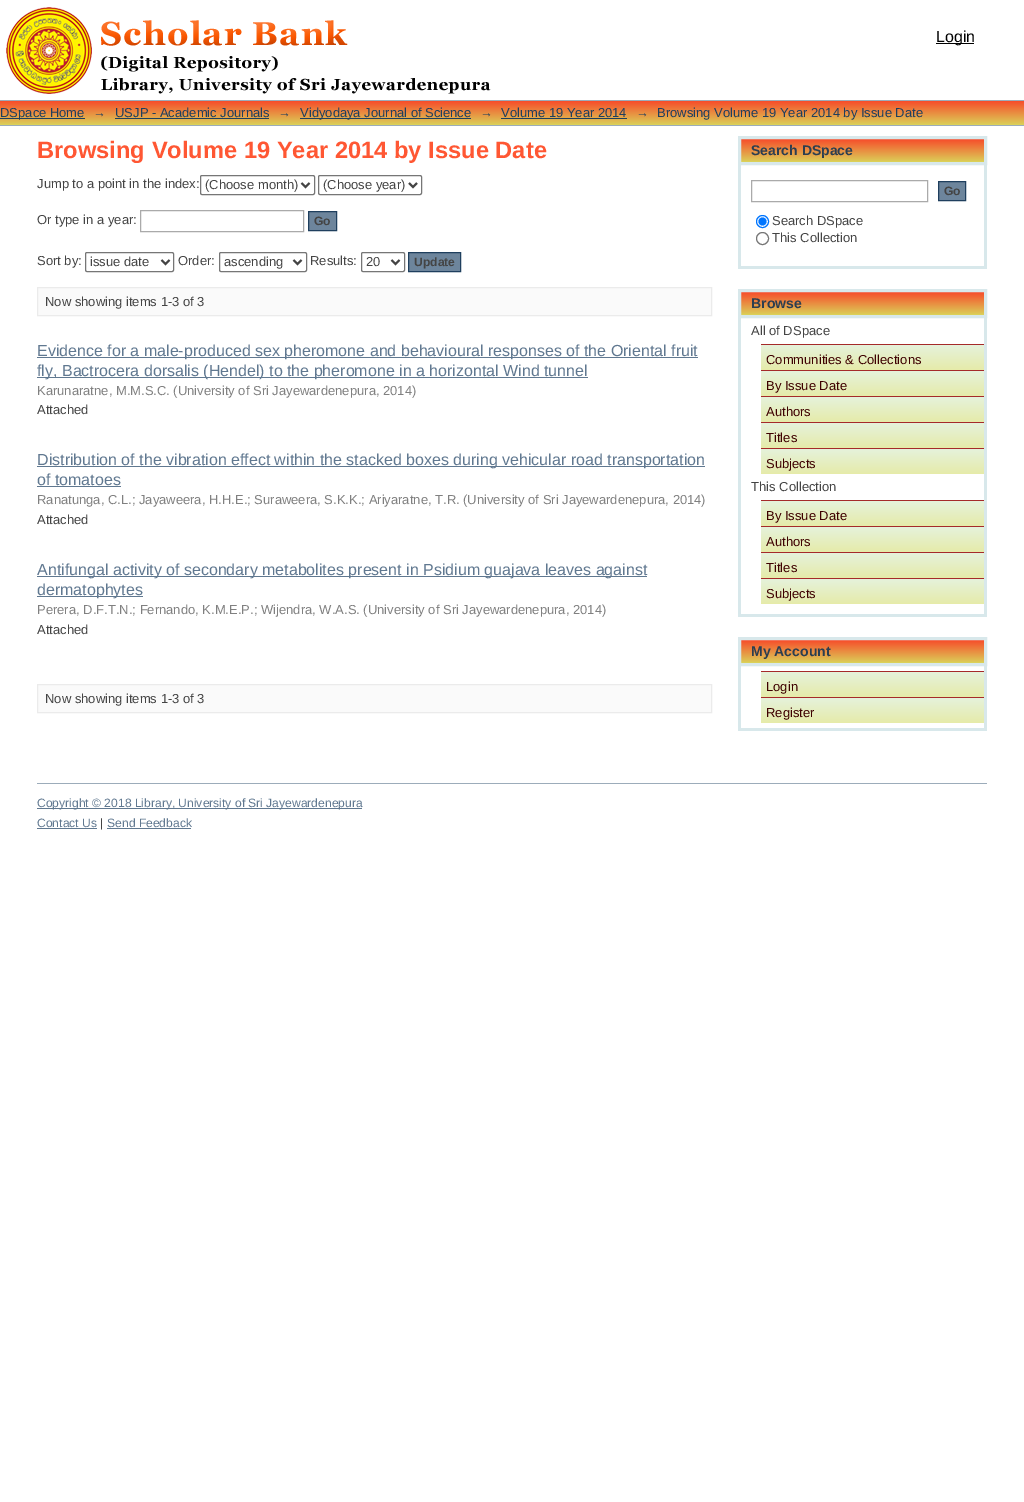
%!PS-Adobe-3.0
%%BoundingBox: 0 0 1024 1502
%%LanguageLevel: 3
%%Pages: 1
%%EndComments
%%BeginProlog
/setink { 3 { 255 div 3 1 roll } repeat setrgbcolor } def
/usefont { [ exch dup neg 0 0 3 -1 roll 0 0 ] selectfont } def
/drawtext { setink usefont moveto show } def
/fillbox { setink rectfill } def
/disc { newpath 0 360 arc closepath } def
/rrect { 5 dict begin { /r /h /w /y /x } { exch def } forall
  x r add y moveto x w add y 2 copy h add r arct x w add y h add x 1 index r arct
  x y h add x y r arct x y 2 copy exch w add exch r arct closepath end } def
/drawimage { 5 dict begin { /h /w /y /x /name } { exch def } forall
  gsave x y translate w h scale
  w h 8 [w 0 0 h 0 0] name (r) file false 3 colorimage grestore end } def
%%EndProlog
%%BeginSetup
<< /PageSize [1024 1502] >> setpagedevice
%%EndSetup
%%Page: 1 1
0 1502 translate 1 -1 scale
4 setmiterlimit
0 0 1024 1502 255 255 255 fillbox
(assets/img1.rgb) 6 7 485 87 drawimage
936 43 38 1 0 0 0 fillbox
(Login) 936 42 /LiberationSans-Regular 16 0 0 0 drawtext
gsave 0 101 moveto 1024 101 lineto 1024 125 lineto 0 125 lineto closepath clip newpath
<< /ShadingType 2 /ColorSpace /DeviceRGB /Coords [512 101 512 125] /Extend [true true] /Function << /FunctionType 2 /Domain [0 1] /C0 [0.969 0.298 0.165] /C1 [0.859 0.816 0.345] /N 1 >> >> shfill grestore
0 100 1024 1 156 172 186 fillbox
0 125 1024 1 156 172 186 fillbox
0 118 85 1 31 63 94 fillbox
(DSpace Home) 0 117 /LiberationSans-Regular 13 31 63 94 drawtext
(→) 93 117 /LiberationSans-Regular 13 31 63 94 drawtext
(USJP - Academic Journals) 115 117 /LiberationSans-Regular 13 31 63 94 drawtext
115 118 154 1 31 63 94 fillbox
(→) 278 117 /LiberationSans-Regular 13 31 63 94 drawtext
300 118 171 1 31 63 94 fillbox
(Vidyodaya Journal of Science) 300 117 /LiberationSans-Regular 13 31 63 94 drawtext
(→) 480 117 /LiberationSans-Regular 13 31 63 94 drawtext
(Volume 19 Year 2014) 501 117 /LiberationSans-Regular 13 31 63 94 drawtext
501 118 126 1 31 63 94 fillbox
(→) 636 117 /LiberationSans-Regular 13 31 63 94 drawtext
(Browsing Volume 19 Year 2014 by Issue Date) 657 117 /LiberationSans-Regular 13 31 63 94 drawtext
(Browsing Volume 19 Year 2014 by Issue Date) 37 158 /LiberationSans-Bold 23.7 255 87 51 drawtext
(Jump to a point in the index:) 37 188 /LiberationSans-Regular 13 68 68 68 drawtext
118 118 118 setink
200.5 175.5 114 19 1.5 rrect stroke
68 68 68 setink
2 setlinewidth
301.5 183 moveto 305.5 187 lineto 309.5 183 lineto stroke
(\(Choose month\)) 205 189 /LiberationSans-Regular 13 68 68 68 drawtext
118 118 118 setink
1 setlinewidth
318.5 175.5 103 19 1.5 rrect stroke
68 68 68 setink
2 setlinewidth
409 183 moveto 413 187 lineto 417 183 lineto stroke
(\(Choose year\)) 323 189 /LiberationSans-Regular 13 68 68 68 drawtext
(Or type in a year:) 37 224 /LiberationSans-Regular 13 68 68 68 drawtext
170 170 170 setink
1 setlinewidth
140.5 210.5 163 21 rectstroke
109 133 156 setink
308.5 211.5 moveto 336.5 211.5 lineto 336.5 230.5 lineto 308.5 230.5 lineto closepath gsave fill grestore
31 63 94 setink
stroke
(Go) 314 225 /LiberationSans-Bold 12.1 68 68 68 drawtext
(Sort by:) 37 265 /LiberationSans-Regular 13 68 68 68 drawtext
118 118 118 setink
85.5 252.5 88 19 1.5 rrect stroke
68 68 68 setink
2 setlinewidth
161.5 260 moveto 165.5 264 lineto 169.5 260 lineto stroke
(issue date) 90 266 /LiberationSans-Regular 13 68 68 68 drawtext
(Order:) 178 265 /LiberationSans-Regular 13 68 68 68 drawtext
118 118 118 setink
1 setlinewidth
219.5 252.5 87 19 1.5 rrect stroke
68 68 68 setink
2 setlinewidth
293.5 260 moveto 297.5 264 lineto 301.5 260 lineto stroke
(ascending) 224 266 /LiberationSans-Regular 13 68 68 68 drawtext
(Results:) 310 265 /LiberationSans-Regular 13 68 68 68 drawtext
118 118 118 setink
1 setlinewidth
361.5 252.5 43 19 1.5 rrect stroke
68 68 68 setink
2 setlinewidth
391.5 260 moveto 395.5 264 lineto 399.5 260 lineto stroke
(20) 366 266 /LiberationSans-Regular 13 68 68 68 drawtext
109 133 156 setink
408.5 252.5 moveto 460.5 252.5 lineto 460.5 271.5 lineto 408.5 271.5 lineto closepath gsave fill grestore
31 63 94 setink
1 setlinewidth
stroke
(Update) 414 266 /LiberationSans-Bold 12.1 68 68 68 drawtext
250 250 250 setink
37.5 287.5 moveto 711.5 287.5 lineto 711.5 315.5 lineto 37.5 315.5 lineto closepath gsave fill grestore
235 235 235 setink
stroke
(Now showing items 1-3 of 3) 45 306 /LiberationSans-Regular 13 68 68 68 drawtext
37 357 661 1 96 120 144 fillbox
(Evidence for a male-produced sex pheromone and behavioural responses of the Oriental fruit) 37 356 /LiberationSans-Regular 16 96 120 144 drawtext
37 377 551 1 96 120 144 fillbox
(fly, Bactrocera dorsalis \(Hendel\) to the pheromone in a horizontal Wind tunnel) 37 376 /LiberationSans-Regular 16 96 120 144 drawtext
(Karunaratne, M.M.S.C. \(University of Sri Jayewardenepura, 2014\)) 37 395 /LiberationSans-Regular 13 128 128 128 drawtext
(Attached) 37 414 /LiberationSans-Regular 13 68 68 68 drawtext
37 466 668 1 96 120 144 fillbox
(Distribution of the vibration effect within the stacked boxes during vehicular road transportation) 37 465 /LiberationSans-Regular 16 96 120 144 drawtext
(of tomatoes) 37 485 /LiberationSans-Regular 16 96 120 144 drawtext
37 486 84 1 96 120 144 fillbox
(Ranatunga, C.L.; Jayaweera, H.H.E.; Suraweera, S.K.K.; Ariyaratne, T.R. \(University of Sri Jayewardenepura, 2014\)) 37 504 /LiberationSans-Regular 13 128 128 128 drawtext
(Attached) 37 524 /LiberationSans-Regular 13 68 68 68 drawtext
37 576 610 1 96 120 144 fillbox
(Antifungal activity of secondary metabolites present in Psidium guajava leaves against) 37 575 /LiberationSans-Regular 16 96 120 144 drawtext
37 596 106 1 96 120 144 fillbox
(dermatophytes) 37 595 /LiberationSans-Regular 16 96 120 144 drawtext
(Perera, D.F.T.N.; Fernando, K.M.E.P.; Wijendra, W.A.S. \(University of Sri Jayewardenepura, 2014\)) 37 614 /LiberationSans-Regular 13 128 128 128 drawtext
(Attached) 37 634 /LiberationSans-Regular 13 68 68 68 drawtext
250 250 250 setink
37.5 684.5 moveto 711.5 684.5 lineto 711.5 712.5 lineto 37.5 712.5 lineto closepath gsave fill grestore
235 235 235 setink
stroke
(Now showing items 1-3 of 3) 45 703 /LiberationSans-Regular 13 68 68 68 drawtext
gsave 741 139 moveto 984 139 lineto 984 162 lineto 741 162 lineto closepath clip newpath
<< /ShadingType 2 /ColorSpace /DeviceRGB /Coords [863 139 863 162] /Extend [true true] /Function << /FunctionType 2 /Domain [0 1] /C0 [0.969 0.298 0.165] /C1 [0.859 0.816 0.345] /N 1 >> >> shfill grestore
216 232 235 setink
3 setlinewidth
739.5 137.5 246 26 rectstroke
(Search DSpace) 751 155 /LiberationSans-Bold 14 44 62 80 drawtext
984 165 3 104 216 232 235 fillbox
738 266 249 3 216 232 235 fillbox
738 165 3 104 216 232 235 fillbox
170 170 170 setink
1 setlinewidth
751.5 180.5 176 21 rectstroke
109 133 156 setink
938.5 181.5 moveto 965.5 181.5 lineto 965.5 200.5 lineto 938.5 200.5 lineto closepath gsave fill grestore
31 63 94 setink
stroke
(Go) 944 195 /LiberationSans-Bold 12.1 68 68 68 drawtext
0 117 255 setink
762.5 221.5 6 disc stroke
762.5 221.5 4 disc fill
(Search DSpace) 772 225 /LiberationSans-Regular 13 68 68 68 drawtext
118 118 118 setink
762.5 238.5 6 disc stroke
(This Collection) 772 242 /LiberationSans-Regular 13 68 68 68 drawtext
gsave 741 292 moveto 984 292 lineto 984 315 lineto 741 315 lineto closepath clip newpath
<< /ShadingType 2 /ColorSpace /DeviceRGB /Coords [863 292 863 315] /Extend [true true] /Function << /FunctionType 2 /Domain [0 1] /C0 [0.969 0.298 0.165] /C1 [0.859 0.816 0.345] /N 1 >> >> shfill grestore
216 232 235 setink
3 setlinewidth
739.5 290.5 246 26 rectstroke
(Browse) 751 308 /LiberationSans-Bold 14 44 62 80 drawtext
984 318 3 299 216 232 235 fillbox
738 614 249 3 216 232 235 fillbox
738 318 3 299 216 232 235 fillbox
(All of DSpace) 751 335 /LiberationSans-Regular 13 68 68 68 drawtext
gsave 761 345 moveto 984 345 lineto 984 370 lineto 761 370 lineto closepath clip newpath
<< /ShadingType 2 /ColorSpace /DeviceRGB /Coords [873 345 873 370] /Extend [true true] /Function << /FunctionType 2 /Domain [0 1] /C0 [0.898 0.949 0.863] /C1 [0.902 0.922 0.663] /N 1 >> >> shfill grestore
761 344 223 1 165 42 42 fillbox
(Communities & Collections) 766 364 /LiberationSans-Regular 13 62 0 0 drawtext
gsave 761 371 moveto 984 371 lineto 984 396 lineto 761 396 lineto closepath clip newpath
<< /ShadingType 2 /ColorSpace /DeviceRGB /Coords [873 371 873 396] /Extend [true true] /Function << /FunctionType 2 /Domain [0 1] /C0 [0.898 0.949 0.863] /C1 [0.902 0.922 0.663] /N 1 >> >> shfill grestore
761 370 223 1 165 42 42 fillbox
(By Issue Date) 766 390 /LiberationSans-Regular 13 62 0 0 drawtext
gsave 761 397 moveto 984 397 lineto 984 422 lineto 761 422 lineto closepath clip newpath
<< /ShadingType 2 /ColorSpace /DeviceRGB /Coords [873 397 873 422] /Extend [true true] /Function << /FunctionType 2 /Domain [0 1] /C0 [0.898 0.949 0.863] /C1 [0.902 0.922 0.663] /N 1 >> >> shfill grestore
761 396 223 1 165 42 42 fillbox
(Authors) 766 416 /LiberationSans-Regular 13 62 0 0 drawtext
gsave 761 423 moveto 984 423 lineto 984 448 lineto 761 448 lineto closepath clip newpath
<< /ShadingType 2 /ColorSpace /DeviceRGB /Coords [873 423 873 448] /Extend [true true] /Function << /FunctionType 2 /Domain [0 1] /C0 [0.898 0.949 0.863] /C1 [0.902 0.922 0.663] /N 1 >> >> shfill grestore
761 422 223 1 165 42 42 fillbox
(Titles) 766 442 /LiberationSans-Regular 13 62 0 0 drawtext
gsave 761 449 moveto 984 449 lineto 984 474 lineto 761 474 lineto closepath clip newpath
<< /ShadingType 2 /ColorSpace /DeviceRGB /Coords [873 449 873 474] /Extend [true true] /Function << /FunctionType 2 /Domain [0 1] /C0 [0.898 0.949 0.863] /C1 [0.902 0.922 0.663] /N 1 >> >> shfill grestore
761 448 223 1 165 42 42 fillbox
(Subjects) 766 468 /LiberationSans-Regular 13 62 0 0 drawtext
(This Collection) 751 491 /LiberationSans-Regular 13 68 68 68 drawtext
gsave 761 501 moveto 984 501 lineto 984 526 lineto 761 526 lineto closepath clip newpath
<< /ShadingType 2 /ColorSpace /DeviceRGB /Coords [873 501 873 526] /Extend [true true] /Function << /FunctionType 2 /Domain [0 1] /C0 [0.898 0.949 0.863] /C1 [0.902 0.922 0.663] /N 1 >> >> shfill grestore
761 500 223 1 165 42 42 fillbox
(By Issue Date) 766 520 /LiberationSans-Regular 13 62 0 0 drawtext
gsave 761 527 moveto 984 527 lineto 984 552 lineto 761 552 lineto closepath clip newpath
<< /ShadingType 2 /ColorSpace /DeviceRGB /Coords [873 527 873 552] /Extend [true true] /Function << /FunctionType 2 /Domain [0 1] /C0 [0.898 0.949 0.863] /C1 [0.902 0.922 0.663] /N 1 >> >> shfill grestore
761 526 223 1 165 42 42 fillbox
(Authors) 766 546 /LiberationSans-Regular 13 62 0 0 drawtext
gsave 761 553 moveto 984 553 lineto 984 578 lineto 761 578 lineto closepath clip newpath
<< /ShadingType 2 /ColorSpace /DeviceRGB /Coords [873 553 873 578] /Extend [true true] /Function << /FunctionType 2 /Domain [0 1] /C0 [0.898 0.949 0.863] /C1 [0.902 0.922 0.663] /N 1 >> >> shfill grestore
761 552 223 1 165 42 42 fillbox
(Titles) 766 572 /LiberationSans-Regular 13 62 0 0 drawtext
gsave 761 579 moveto 984 579 lineto 984 604 lineto 761 604 lineto closepath clip newpath
<< /ShadingType 2 /ColorSpace /DeviceRGB /Coords [873 579 873 604] /Extend [true true] /Function << /FunctionType 2 /Domain [0 1] /C0 [0.898 0.949 0.863] /C1 [0.902 0.922 0.663] /N 1 >> >> shfill grestore
761 578 223 1 165 42 42 fillbox
(Subjects) 766 598 /LiberationSans-Regular 13 62 0 0 drawtext
gsave 741 640 moveto 984 640 lineto 984 663 lineto 741 663 lineto closepath clip newpath
<< /ShadingType 2 /ColorSpace /DeviceRGB /Coords [863 640 863 663] /Extend [true true] /Function << /FunctionType 2 /Domain [0 1] /C0 [0.969 0.298 0.165] /C1 [0.859 0.816 0.345] /N 1 >> >> shfill grestore
216 232 235 setink
739.5 638.5 246 26 rectstroke
(My Account) 751 656 /LiberationSans-Bold 14 44 62 80 drawtext
984 666 3 65 216 232 235 fillbox
738 728 249 3 216 232 235 fillbox
738 666 3 65 216 232 235 fillbox
gsave 761 672 moveto 984 672 lineto 984 697 lineto 761 697 lineto closepath clip newpath
<< /ShadingType 2 /ColorSpace /DeviceRGB /Coords [873 672 873 697] /Extend [true true] /Function << /FunctionType 2 /Domain [0 1] /C0 [0.898 0.949 0.863] /C1 [0.902 0.922 0.663] /N 1 >> >> shfill grestore
761 671 223 1 165 42 42 fillbox
(Login) 766 691 /LiberationSans-Regular 13 62 0 0 drawtext
gsave 761 698 moveto 984 698 lineto 984 723 lineto 761 723 lineto closepath clip newpath
<< /ShadingType 2 /ColorSpace /DeviceRGB /Coords [873 698 873 723] /Extend [true true] /Function << /FunctionType 2 /Domain [0 1] /C0 [0.898 0.949 0.863] /C1 [0.902 0.922 0.663] /N 1 >> >> shfill grestore
761 697 223 1 165 42 42 fillbox
(Register) 766 717 /LiberationSans-Regular 13 62 0 0 drawtext
37 783 950 1 156 172 186 fillbox
37 808 325 1 96 120 144 fillbox
(Copyright © 2018 Library, University of Sri Jayewardenepura) 37 807 /LiberationSans-Regular 12.1 96 120 144 drawtext
(Contact Us) 37 827 /LiberationSans-Regular 12.1 96 120 144 drawtext
37 828 60 1 96 120 144 fillbox
(|) 100 827 /LiberationSans-Regular 12.1 68 68 68 drawtext
(Send Feedback) 107 827 /LiberationSans-Regular 12.1 96 120 144 drawtext
107 828 84 1 96 120 144 fillbox
showpage
%%EOF
